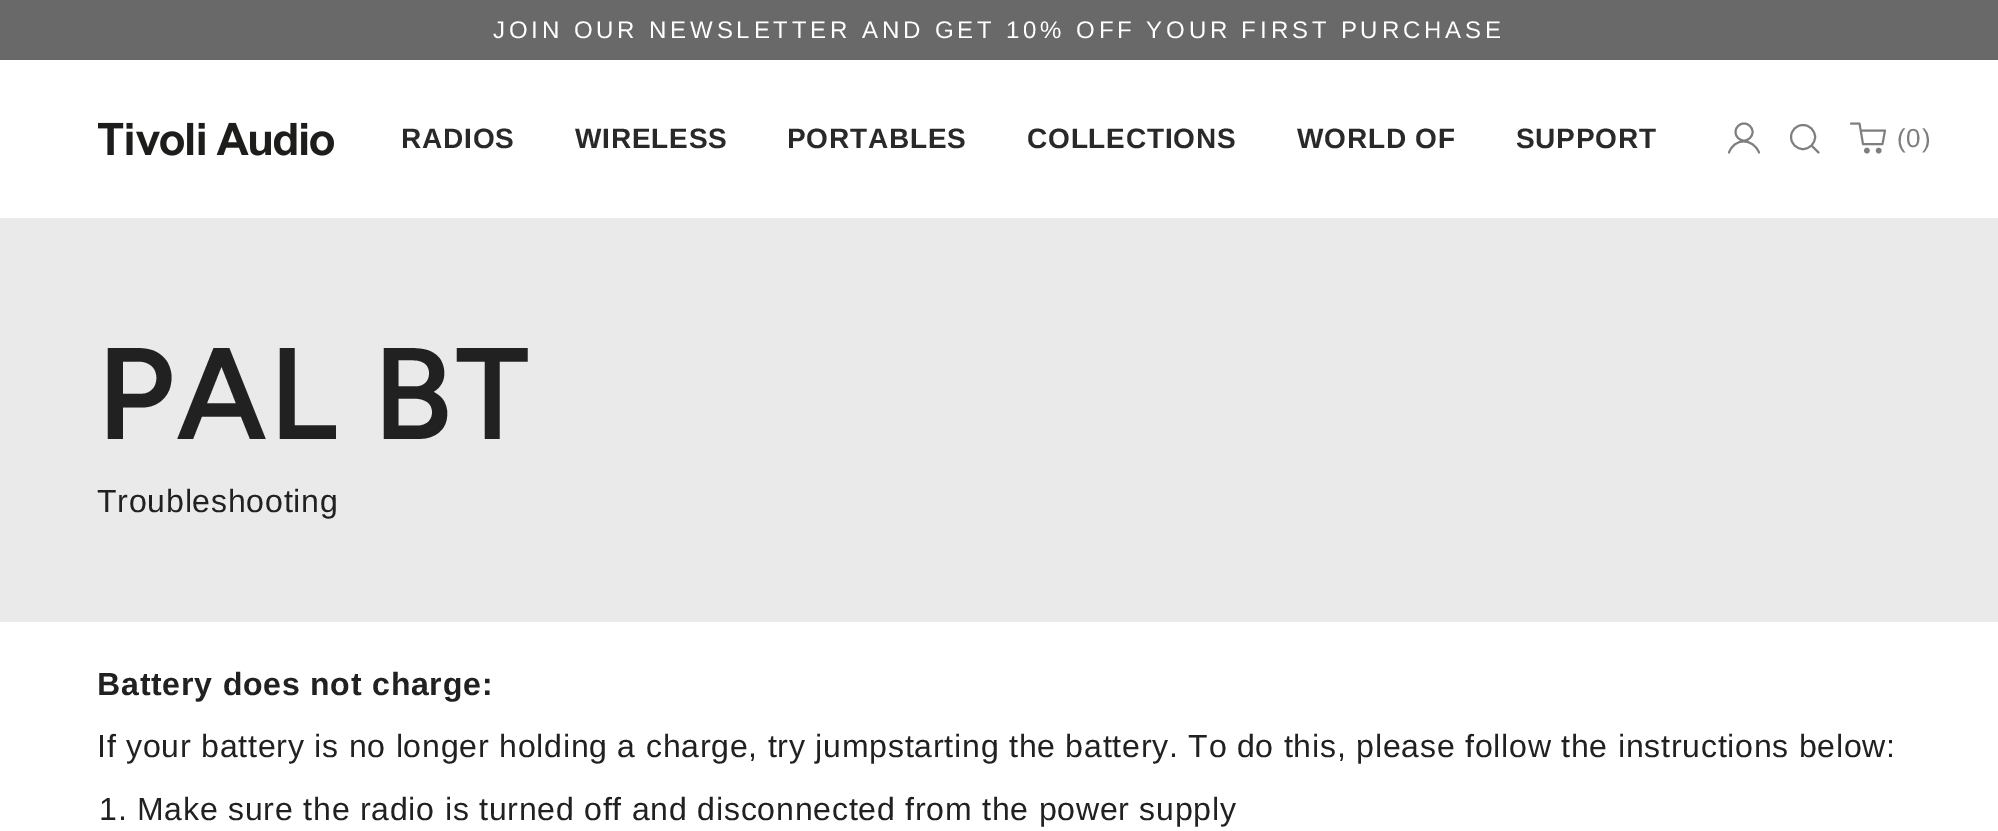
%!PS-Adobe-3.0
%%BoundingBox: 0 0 1998 831
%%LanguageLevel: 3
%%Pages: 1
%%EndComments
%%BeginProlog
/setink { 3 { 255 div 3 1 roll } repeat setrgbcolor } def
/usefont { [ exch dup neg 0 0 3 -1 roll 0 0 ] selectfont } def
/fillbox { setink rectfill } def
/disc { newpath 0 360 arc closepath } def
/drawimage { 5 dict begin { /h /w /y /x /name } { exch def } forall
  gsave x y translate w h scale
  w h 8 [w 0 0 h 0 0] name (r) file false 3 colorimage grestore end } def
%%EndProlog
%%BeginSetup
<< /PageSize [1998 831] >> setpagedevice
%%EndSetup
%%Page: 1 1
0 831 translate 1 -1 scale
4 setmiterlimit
0 0 1998 831 255 255 255 fillbox
0 0 1998 60 105 105 105 fillbox
/LiberationSans-Regular 24 usefont
255 255 255 setink
493 38 moveto 3.85 0 (JOIN OUR NEWSLETTER AND GET 10% OFF YOUR FIRST PURCHASE) ashow
(assets/img1.rgb) 98 122 236 34 drawimage
/LiberationSans-Bold 28 usefont
41 41 41 setink
401 148 moveto 0.8 0 (RADIOS) ashow
575 148 moveto 0.8 0 (WIRELESS) ashow
787 148 moveto 0.8 0 (PORTABLES) ashow
1027 148 moveto 0.8 0 (COLLECTIONS) ashow
1297 148 moveto 0.8 0 (WORLD OF) ashow
1516 148 moveto 0.8 0 (SUPPORT) ashow
126 126 126 setink
1.9 setlinewidth
1744 132 8.5 disc stroke
1 setlinecap
1 setlinejoin
1729 152.5 moveto 1734.5 137.5 1753 138 1759 152.5 curveto stroke
0 setlinecap
0 setlinejoin
1803 137 12 disc stroke
1 setlinecap
1 setlinejoin
1818.5 152.5 moveto 1812 146 lineto stroke
1866.9 150.6 2.8 disc fill
1878.7 150.6 2.8 disc fill
1851 123.5 moveto 1859.5 123.5 lineto 1863 144 lineto 1882.5 144 lineto 1885 130.5 lineto 1861 130.5 lineto stroke
/LiberationSans-Regular 26 usefont
1897 147 moveto 0.8 0 (\(0\)) ashow
0 218 1998 404 234 234 234 fillbox
/Figtree-SemiBold 130 usefont
33 33 33 setink
97 439 moveto 2 0 (PAL BT) ashow
/LiberationSans-Regular 32 usefont
97 512 moveto 0.8 0 (Troubleshooting) ashow
/LiberationSans-Bold 32 usefont
97 695 moveto 0.8 0 (Battery does not charge:) ashow
/LiberationSans-Regular 32 usefont
97 757 moveto 0.8 0 (If your battery is no longer holding a charge, try jumpstarting the battery. To do this, please follow the instructions below:) ashow
99 820 moveto 0.8 0 (1. Make sure the radio is turned off and disconnected from the power supply) ashow
showpage
%%EOF
